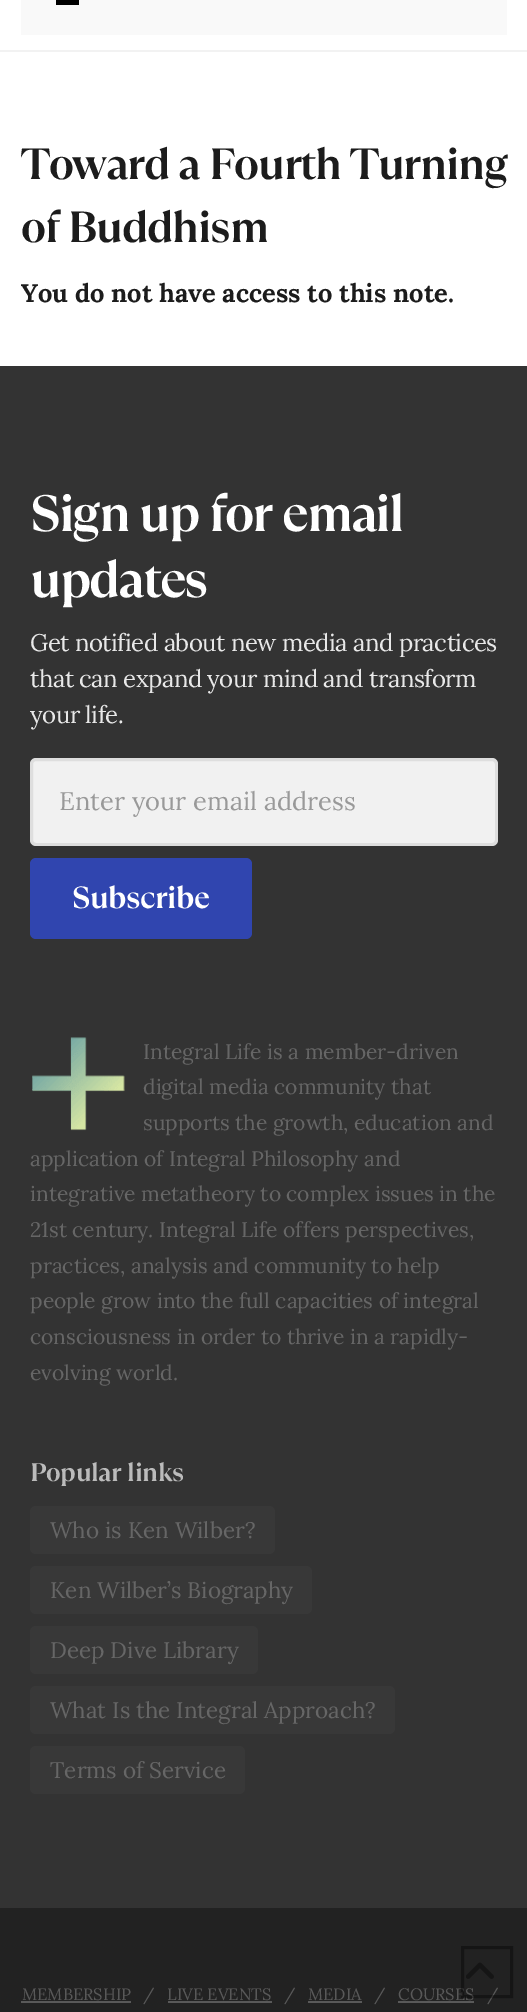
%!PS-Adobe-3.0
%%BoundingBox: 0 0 527 2012
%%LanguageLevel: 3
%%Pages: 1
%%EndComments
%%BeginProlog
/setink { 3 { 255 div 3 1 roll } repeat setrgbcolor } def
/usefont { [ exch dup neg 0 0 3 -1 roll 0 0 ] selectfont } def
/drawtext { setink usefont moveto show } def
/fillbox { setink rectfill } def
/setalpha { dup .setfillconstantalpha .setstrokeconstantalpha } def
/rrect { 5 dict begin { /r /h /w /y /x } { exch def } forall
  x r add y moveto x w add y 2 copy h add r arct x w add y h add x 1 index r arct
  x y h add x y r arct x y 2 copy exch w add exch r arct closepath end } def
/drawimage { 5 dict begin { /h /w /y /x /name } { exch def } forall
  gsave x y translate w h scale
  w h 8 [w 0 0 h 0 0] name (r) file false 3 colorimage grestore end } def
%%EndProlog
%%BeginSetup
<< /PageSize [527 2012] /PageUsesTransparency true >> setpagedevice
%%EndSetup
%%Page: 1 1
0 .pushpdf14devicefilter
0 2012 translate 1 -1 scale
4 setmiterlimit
0 0 527 2012 255 255 255 fillbox
0 50 527 2 242 242 242 fillbox
21 0 486 35 249 249 249 fillbox
56 0 23 5 0 0 0 fillbox
/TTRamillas-Bold 43.4 usefont
28 28 28 setink
21 179 moveto -1.3 0 (Toward a Fourth Turning) ashow
21 242 moveto -1.3 0 (of Buddhism) ashow
(You do not have access to this note.) 21 302 /Lora-Bold 25.5 28 28 28 drawtext
0 366 527 1542 51 51 51 fillbox
/TTRamillas-Bold 51 usefont
255 255 255 setink
30 531 moveto -2 0 (Sign up for email) ashow
30 597 moveto -2 0 (updates) ashow
/Lora-Regular 24 usefont
232 232 232 setink
30 651 moveto -0.5 0 (Get notified about new media and practices) ashow
30 687 moveto -0.5 0 (that can expand your mind and transform) ashow
30 723 moveto -0.5 0 (your life.) ashow
241 241 241 setink
30 758 468 88 6 rrect fill
0.1 setalpha
51 51 51 setink
3 setlinewidth
31.5 759.5 465 85 4.5 rrect stroke
1 setalpha
(Enter your email address) 59 810 /Lora-Regular 25.5 153 153 153 drawtext
48 69 175 setink
30 858 222 81 6 rrect fill
/TTRamillas-Bold 30.5 usefont
255 255 255 setink
72 908 moveto -0.5 0 (Subscribe) ashow
(assets/img1.rgb) 32 1037 93 94 drawimage
(Integral Life is a member-driven) 143 1059 /Lora-Regular 21 102 102 102 drawtext
(digital media community that) 143 1094 /Lora-Regular 21 102 102 102 drawtext
(supports the growth, education and) 143 1130 /Lora-Regular 21 102 102 102 drawtext
(application of Integral Philosophy and) 30 1166 /Lora-Regular 21 102 102 102 drawtext
(integrative metatheory to complex issues in the) 30 1201 /Lora-Regular 21 102 102 102 drawtext
(21st century. Integral Life offers perspectives,) 30 1237 /Lora-Regular 21 102 102 102 drawtext
(practices, analysis and community to help) 30 1273 /Lora-Regular 21 102 102 102 drawtext
(people grow into the full capacities of integral) 30 1308 /Lora-Regular 21 102 102 102 drawtext
(consciousness in order to thrive in a rapidly-) 30 1344 /Lora-Regular 21 102 102 102 drawtext
(evolving world.) 30 1380 /Lora-Regular 21 102 102 102 drawtext
/TTRamillas-Bold 25.5 usefont
187 187 187 setink
30 1481 moveto -0.4 0 (Popular links) ashow
56 56 56 setink
30 1506 245 48 6 rrect fill
(Who is Ken Wilber?) 50 1538 /Lora-Regular 22.5 102 102 102 drawtext
56 56 56 setink
30 1566 282 48 6 rrect fill
(Ken Wilber’s Biography) 50 1598 /Lora-Regular 22.5 102 102 102 drawtext
56 56 56 setink
30 1626 228 48 6 rrect fill
(Deep Dive Library) 50 1658 /Lora-Regular 22.5 102 102 102 drawtext
56 56 56 setink
30 1686 365 48 6 rrect fill
(What Is the Integral Approach?) 50 1718 /Lora-Regular 22.5 102 102 102 drawtext
56 56 56 setink
30 1746 215 48 6 rrect fill
(Terms of Service) 50 1778 /Lora-Regular 22.5 102 102 102 drawtext
0 1908 527 104 34 34 34 fillbox
(MEMBERSHIP) 22 2000 /Lora-Regular 16.5 89 89 89 drawtext
21 2001 110 2 89 89 89 fillbox
(/) 143 2000 /Lora-Regular 16.5 89 89 89 drawtext
(LIVE EVENTS) 167 2000 /Lora-Regular 16.5 89 89 89 drawtext
168 2001 104 2 89 89 89 fillbox
(/) 284 2000 /Lora-Regular 16.5 89 89 89 drawtext
(MEDIA) 308 2000 /Lora-Regular 16.5 89 89 89 drawtext
308 2001 54 2 89 89 89 fillbox
(/) 374 2000 /Lora-Regular 16.5 89 89 89 drawtext
(COURSES) 398 2000 /Lora-Regular 16.5 89 89 89 drawtext
398 2001 76 2 89 89 89 fillbox
(/) 487 2000 /Lora-Regular 16.5 89 89 89 drawtext
0.38 setalpha
0 0 0 setink
462.5 1947.5 49 49 rectstroke
1 setalpha
(assets/img2.rgb) 466 1962 28 17 drawimage
.poppdf14devicefilter showpage
%%EOF
